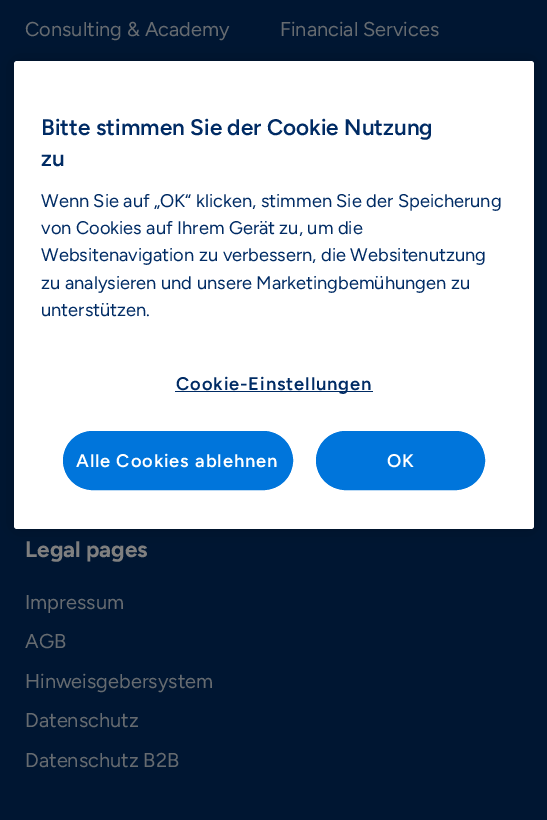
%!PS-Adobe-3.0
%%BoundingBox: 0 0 547 820
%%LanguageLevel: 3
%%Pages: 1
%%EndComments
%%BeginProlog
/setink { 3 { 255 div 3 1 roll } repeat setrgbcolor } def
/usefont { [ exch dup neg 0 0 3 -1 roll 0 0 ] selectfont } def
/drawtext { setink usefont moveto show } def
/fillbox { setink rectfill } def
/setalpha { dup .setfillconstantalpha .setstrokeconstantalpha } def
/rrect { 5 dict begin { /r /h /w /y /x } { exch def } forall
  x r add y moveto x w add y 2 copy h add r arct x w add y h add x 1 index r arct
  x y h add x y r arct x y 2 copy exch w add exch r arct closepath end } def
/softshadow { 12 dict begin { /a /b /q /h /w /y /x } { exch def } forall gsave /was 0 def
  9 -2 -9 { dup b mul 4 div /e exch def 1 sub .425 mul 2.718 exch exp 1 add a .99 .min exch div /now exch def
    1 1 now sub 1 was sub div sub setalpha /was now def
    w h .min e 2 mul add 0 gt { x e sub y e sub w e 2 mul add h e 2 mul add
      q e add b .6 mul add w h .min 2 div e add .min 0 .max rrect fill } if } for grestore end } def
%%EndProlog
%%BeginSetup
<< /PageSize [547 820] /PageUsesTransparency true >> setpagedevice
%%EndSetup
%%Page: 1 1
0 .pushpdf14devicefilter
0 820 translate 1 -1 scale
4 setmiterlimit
0 0 547 820 0 22 50 fillbox
(Consulting & Academy) 25 36 /Figtree-Regular 20 102 107 112 drawtext
(Financial Services) 280 36 /Figtree-Regular 20 102 107 112 drawtext
(Legal pages) 25 557 /Figtree-Bold 22.5 128 128 128 drawtext
(Impressum) 25 609 /Figtree-Regular 20 102 107 112 drawtext
(AGB) 25 648 /Figtree-Regular 20 102 107 112 drawtext
(Hinweisgebersystem) 25 688 /Figtree-Regular 20 102 107 112 drawtext
(Datenschutz) 25 727 /Figtree-Regular 20 102 107 112 drawtext
(Datenschutz B2B) 25 767 /Figtree-Regular 20 102 107 112 drawtext
0 0 0 setink
14 61 520 468 3 11 0.2 softshadow
255 255 255 setink
14 61 520 468 3 rrect fill
(Bitte stimmen Sie der Cookie Nutzung) 41 135 /Figtree-SemiBold 22.5 0 43 100 drawtext
(zu) 41 166 /Figtree-SemiBold 22.5 0 43 100 drawtext
(Wenn Sie auf „OK“ klicken, stimmen Sie der Speicherung) 41 207 /Figtree-Regular 18.3 0 43 100 drawtext
(von Cookies auf Ihrem Gerät zu, um die) 41 234 /Figtree-Regular 18.3 0 43 100 drawtext
(Websitenavigation zu verbessern, die Websitenutzung) 41 261 /Figtree-Regular 18.3 0 43 100 drawtext
(zu analysieren und unsere Marketingbemühungen zu) 41 289 /Figtree-Regular 18.3 0 43 100 drawtext
(unterstützen.) 41 316 /Figtree-Regular 18.3 0 43 100 drawtext
175 391 198 1 0 43 100 fillbox
/Figtree-SemiBold 18.3 usefont
176 390 moveto 0.9 0 (Cookie-Einstellungen) ashow
0 117 219 setink
63.5 431.5 229 58 29 rrect gsave fill grestore
stroke
255 255 255 setink
76 467 moveto 0.9 0 (Alle Cookies ablehnen) ashow
0 117 219 setink
316.5 431.5 168 58 29 rrect gsave fill grestore
stroke
255 255 255 setink
387 467 moveto 0.9 0 (OK) ashow
.poppdf14devicefilter showpage
%%EOF
